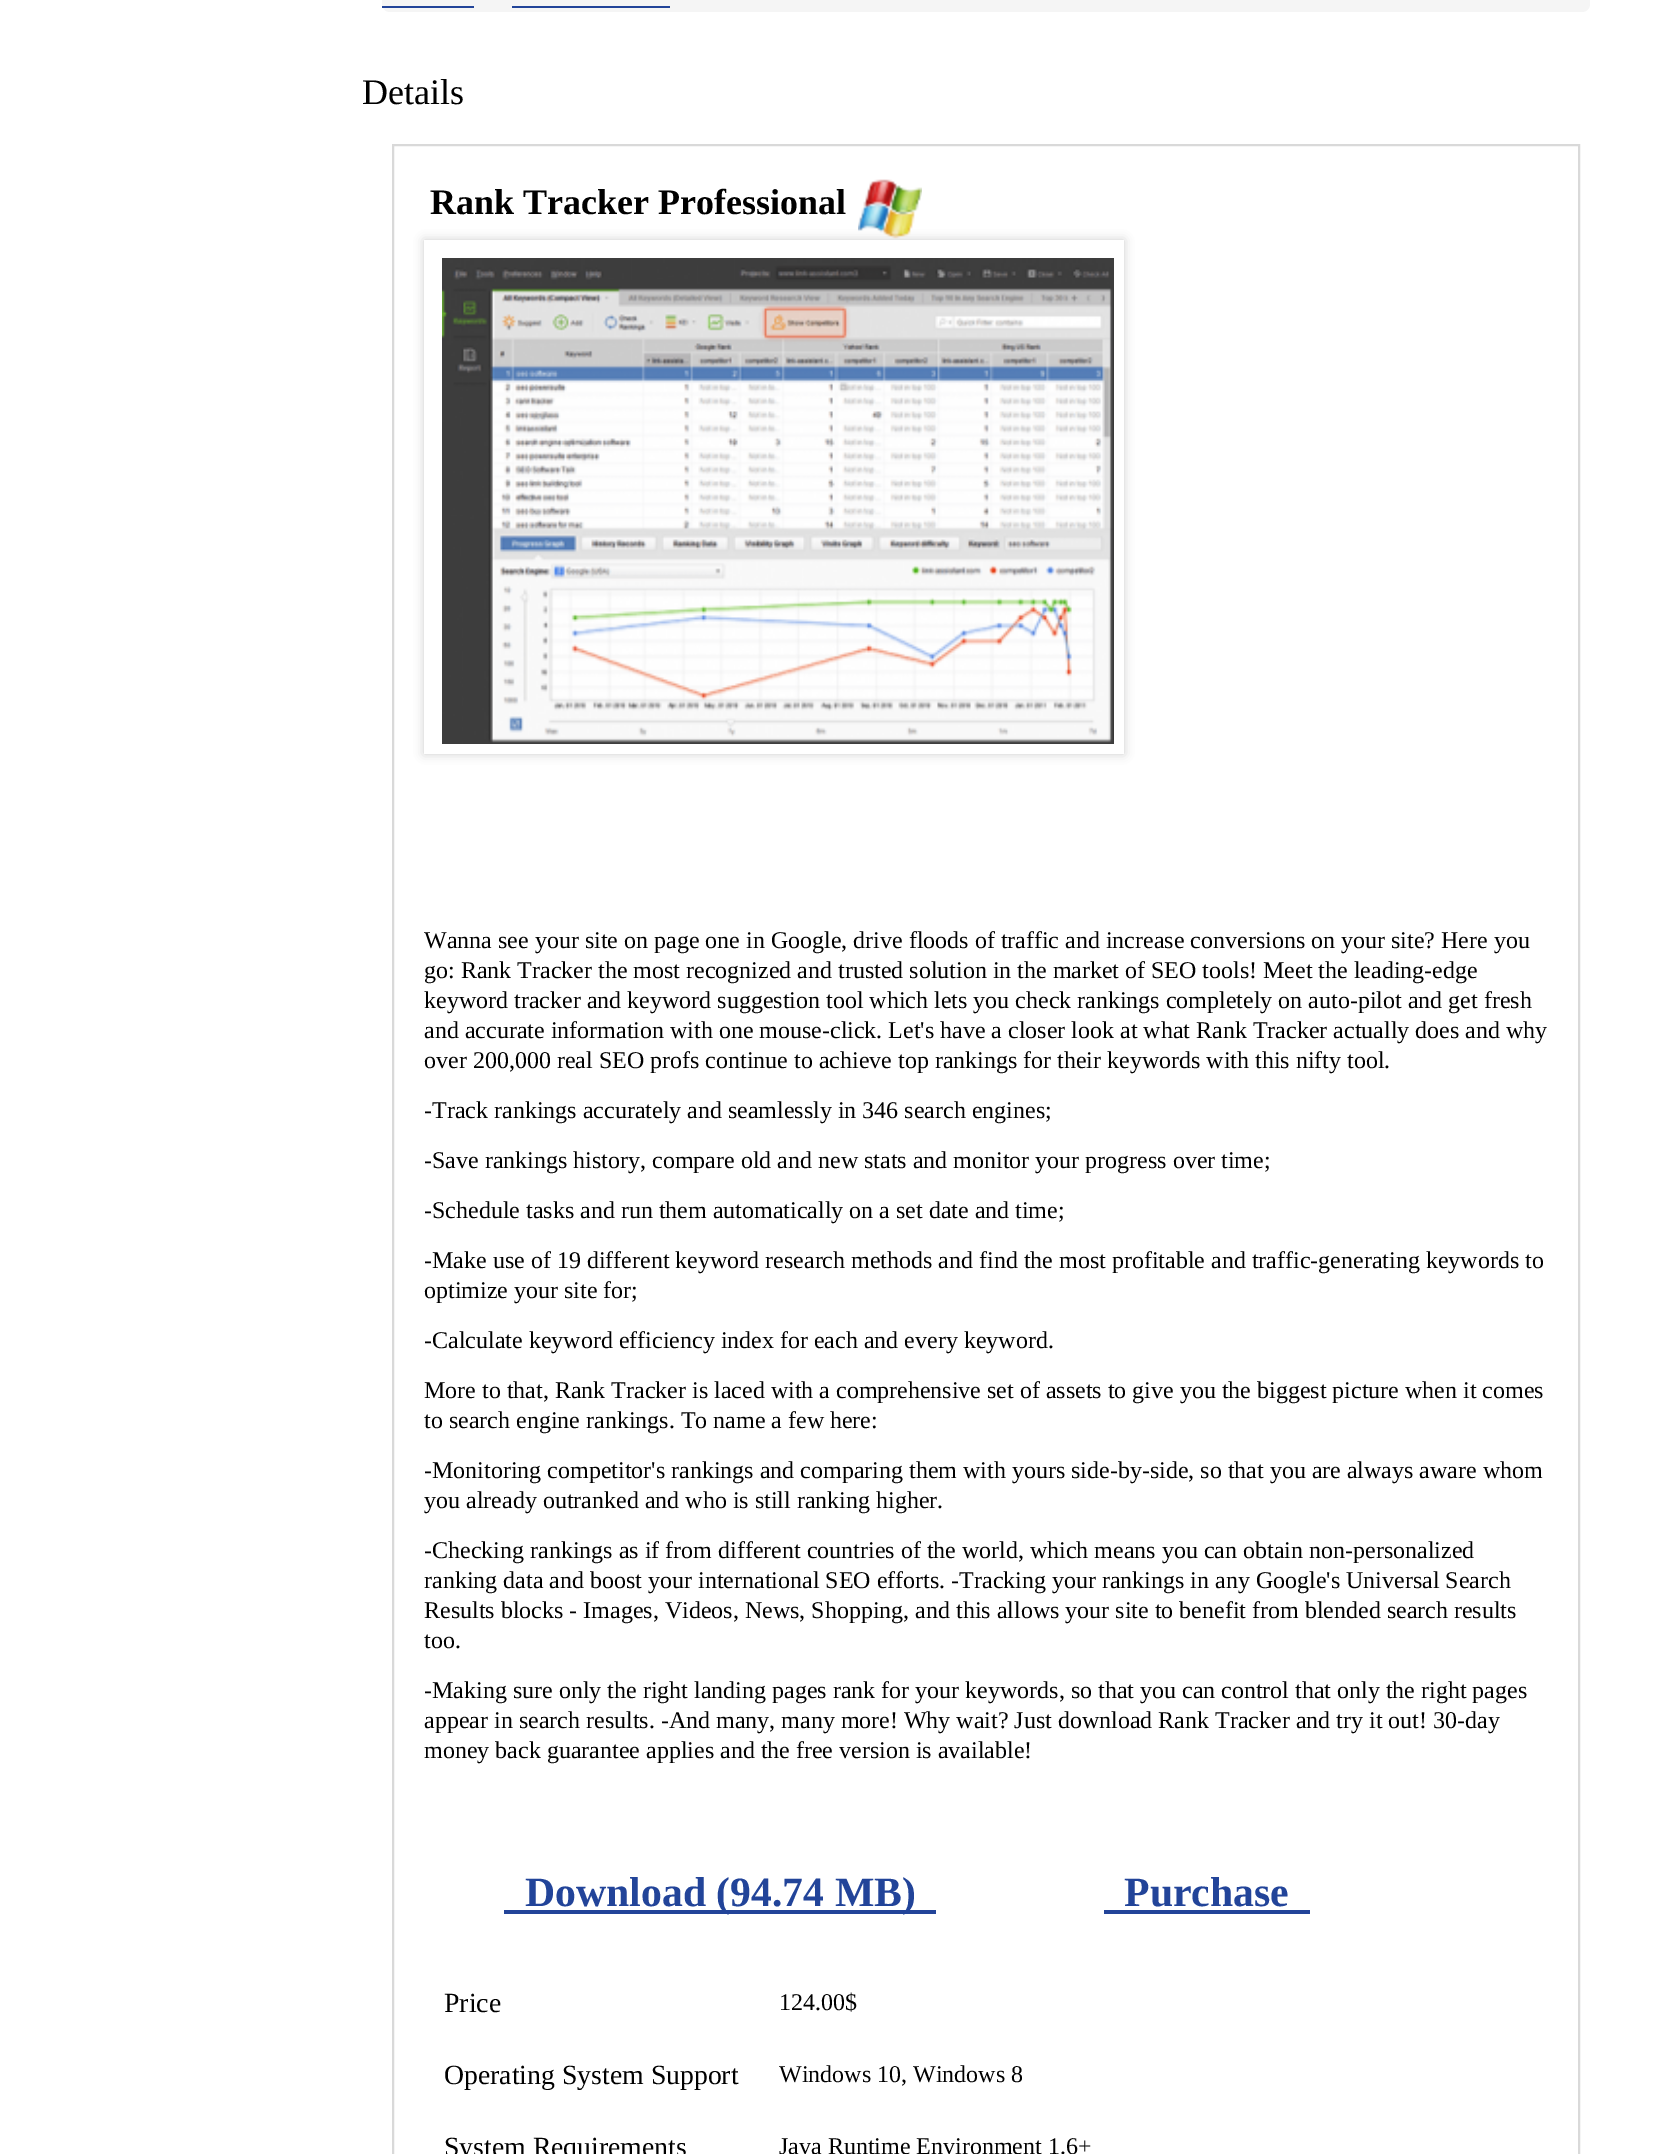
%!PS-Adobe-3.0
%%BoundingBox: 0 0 1660 2154
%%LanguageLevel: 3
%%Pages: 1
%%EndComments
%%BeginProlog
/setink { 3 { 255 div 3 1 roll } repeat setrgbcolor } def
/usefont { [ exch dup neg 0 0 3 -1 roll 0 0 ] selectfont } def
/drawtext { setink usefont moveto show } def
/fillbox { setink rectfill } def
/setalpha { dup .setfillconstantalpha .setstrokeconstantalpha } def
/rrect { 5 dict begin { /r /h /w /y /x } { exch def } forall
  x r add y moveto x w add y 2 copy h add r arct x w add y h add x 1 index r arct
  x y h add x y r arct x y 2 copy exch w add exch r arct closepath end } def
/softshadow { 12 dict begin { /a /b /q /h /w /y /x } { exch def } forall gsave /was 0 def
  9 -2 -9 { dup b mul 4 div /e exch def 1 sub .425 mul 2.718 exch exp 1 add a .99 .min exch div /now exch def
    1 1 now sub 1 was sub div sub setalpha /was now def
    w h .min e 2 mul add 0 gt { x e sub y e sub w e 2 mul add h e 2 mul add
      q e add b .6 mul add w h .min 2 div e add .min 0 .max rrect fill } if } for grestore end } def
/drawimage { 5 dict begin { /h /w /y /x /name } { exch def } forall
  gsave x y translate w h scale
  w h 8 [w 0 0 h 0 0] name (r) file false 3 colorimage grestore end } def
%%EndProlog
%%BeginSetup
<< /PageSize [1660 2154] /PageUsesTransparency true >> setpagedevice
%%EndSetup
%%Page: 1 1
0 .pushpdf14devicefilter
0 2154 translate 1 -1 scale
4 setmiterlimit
0 0 1660 2154 255 255 255 fillbox
245 245 245 setink
382 -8 1208 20 8 rrect fill
382 6 92 2 34 68 153 fillbox
512 6 158 2 34 68 153 fillbox
(Details) 362 104 /LiberationSerif-Regular 36 0 0 0 drawtext
217 217 217 setink
2 setlinewidth
393 145 1186 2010 rectstroke
(Rank Tracker Professional) 430 214 /LiberationSerif-Bold 36 0 0 0 drawtext
(assets/img1.rgb) 858 179 64 60 drawimage
gsave
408 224 moveto 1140 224 lineto 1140 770 lineto 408 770 lineto closepath 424 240 moveto 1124 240 lineto 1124 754 lineto 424 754 lineto closepath eoclip newpath
204 204 204 setink
424 240 700 514 0 5 1 softshadow
grestore
(assets/img2.rgb) 442 258 672 486 drawimage
(Wanna see your site on page one in Google, drive floods of traffic and increase conversions on your site? Here you) 424 948 /LiberationSerif-Regular 24 0 0 0 drawtext
(go: Rank Tracker the most recognized and trusted solution in the market of SEO tools! Meet the leading-edge) 424 978 /LiberationSerif-Regular 24 0 0 0 drawtext
(keyword tracker and keyword suggestion tool which lets you check rankings completely on auto-pilot and get fresh) 424 1008 /LiberationSerif-Regular 24 0 0 0 drawtext
(and accurate information with one mouse-click. Let's have a closer look at what Rank Tracker actually does and why) 424 1038 /LiberationSerif-Regular 24 0 0 0 drawtext
(over 200,000 real SEO profs continue to achieve top rankings for their keywords with this nifty tool.) 424 1068 /LiberationSerif-Regular 24 0 0 0 drawtext
(-Track rankings accurately and seamlessly in 346 search engines;) 424 1118 /LiberationSerif-Regular 24 0 0 0 drawtext
(-Save rankings history, compare old and new stats and monitor your progress over time;) 424 1168 /LiberationSerif-Regular 24 0 0 0 drawtext
(-Schedule tasks and run them automatically on a set date and time;) 424 1218 /LiberationSerif-Regular 24 0 0 0 drawtext
(-Make use of 19 different keyword research methods and find the most profitable and traffic-generating keywords to) 424 1268 /LiberationSerif-Regular 24 0 0 0 drawtext
(optimize your site for;) 424 1298 /LiberationSerif-Regular 24 0 0 0 drawtext
(-Calculate keyword efficiency index for each and every keyword.) 424 1348 /LiberationSerif-Regular 24 0 0 0 drawtext
(More to that, Rank Tracker is laced with a comprehensive set of assets to give you the biggest picture when it comes) 424 1398 /LiberationSerif-Regular 24 0 0 0 drawtext
(to search engine rankings. To name a few here:) 424 1428 /LiberationSerif-Regular 24 0 0 0 drawtext
(-Monitoring competitor's rankings and comparing them with yours side-by-side, so that you are always aware whom) 424 1478 /LiberationSerif-Regular 24 0 0 0 drawtext
(you already outranked and who is still ranking higher.) 424 1508 /LiberationSerif-Regular 24 0 0 0 drawtext
(-Checking rankings as if from different countries of the world, which means you can obtain non-personalized) 424 1558 /LiberationSerif-Regular 24 0 0 0 drawtext
(ranking data and boost your international SEO efforts. -Tracking your rankings in any Google's Universal Search) 424 1588 /LiberationSerif-Regular 24 0 0 0 drawtext
(Results blocks - Images, Videos, News, Shopping, and this allows your site to benefit from blended search results) 424 1618 /LiberationSerif-Regular 24 0 0 0 drawtext
(too.) 424 1648 /LiberationSerif-Regular 24 0 0 0 drawtext
(-Making sure only the right landing pages rank for your keywords, so that you can control that only the right pages) 424 1698 /LiberationSerif-Regular 24 0 0 0 drawtext
(appear in search results. -And many, many more! Why wait? Just download Rank Tracker and try it out! 30-day) 424 1728 /LiberationSerif-Regular 24 0 0 0 drawtext
(money back guarantee applies and the free version is available!) 424 1758 /LiberationSerif-Regular 24 0 0 0 drawtext
504 1910 432 4 34 68 153 fillbox
(Download \(94.74 MB\)) 525 1906 /LiberationSerif-Bold 41.75 34 68 153 drawtext
(Purchase) 1124 1906 /LiberationSerif-Bold 41.75 34 68 153 drawtext
1104 1910 206 4 34 68 153 fillbox
(Price) 444 2012 /LiberationSerif-Regular 27.75 0 0 0 drawtext
(124.00$) 779 2010 /LiberationSerif-Regular 24 0 0 0 drawtext
(Operating System Support) 444 2084 /LiberationSerif-Regular 27.75 0 0 0 drawtext
(Windows 10, Windows 8) 779 2082 /LiberationSerif-Regular 24 0 0 0 drawtext
(System Requirements) 444 2156 /LiberationSerif-Regular 27.75 0 0 0 drawtext
(Java Runtime Environment 1.6+) 779 2154 /LiberationSerif-Regular 24 0 0 0 drawtext
.poppdf14devicefilter showpage
%%EOF
